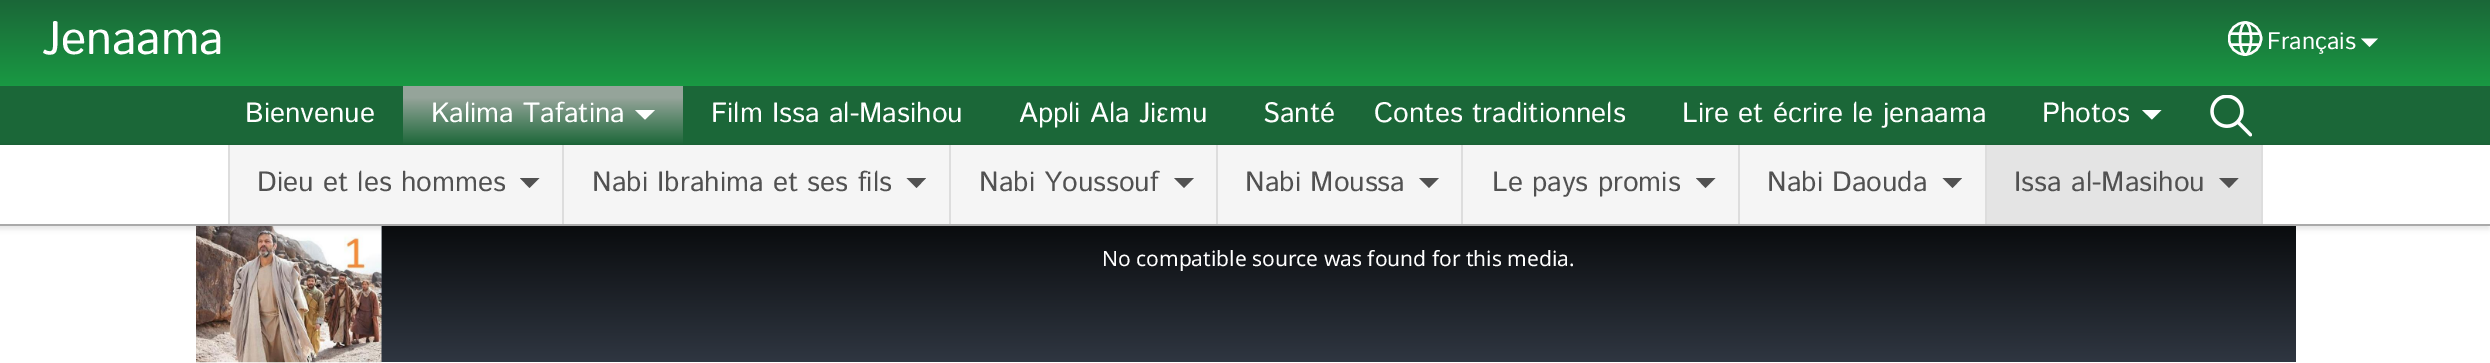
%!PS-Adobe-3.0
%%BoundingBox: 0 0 2490 363
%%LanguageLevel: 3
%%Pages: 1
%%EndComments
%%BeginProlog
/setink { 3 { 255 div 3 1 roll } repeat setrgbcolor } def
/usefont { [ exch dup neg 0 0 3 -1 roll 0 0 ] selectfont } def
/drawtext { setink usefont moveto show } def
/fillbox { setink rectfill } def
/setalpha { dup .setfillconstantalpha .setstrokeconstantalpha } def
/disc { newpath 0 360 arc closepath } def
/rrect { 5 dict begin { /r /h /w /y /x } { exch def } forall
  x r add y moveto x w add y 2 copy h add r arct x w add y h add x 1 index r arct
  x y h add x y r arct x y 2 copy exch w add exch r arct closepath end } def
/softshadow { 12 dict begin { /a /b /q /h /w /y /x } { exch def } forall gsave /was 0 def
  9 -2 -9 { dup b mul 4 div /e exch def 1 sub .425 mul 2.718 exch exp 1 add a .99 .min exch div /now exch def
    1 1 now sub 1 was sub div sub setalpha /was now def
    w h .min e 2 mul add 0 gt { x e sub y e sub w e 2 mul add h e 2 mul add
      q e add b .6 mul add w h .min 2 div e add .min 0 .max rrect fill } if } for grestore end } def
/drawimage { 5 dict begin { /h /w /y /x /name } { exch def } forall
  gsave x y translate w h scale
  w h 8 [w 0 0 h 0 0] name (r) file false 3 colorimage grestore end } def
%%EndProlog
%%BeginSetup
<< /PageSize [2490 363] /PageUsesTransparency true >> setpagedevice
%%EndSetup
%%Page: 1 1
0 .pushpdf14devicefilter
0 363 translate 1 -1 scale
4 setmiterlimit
0 0 2490 363 255 255 255 fillbox
gsave 0 0 moveto 2490 0 lineto 2490 86 lineto 0 86 lineto closepath clip newpath
<< /ShadingType 2 /ColorSpace /DeviceRGB /Coords [1245 0 1245 86] /Extend [true true] /Function << /FunctionType 2 /Domain [0 1] /C0 [0.106 0.404 0.22] /C1 [0.098 0.6 0.263] /N 1 >> >> shfill grestore
(Jenaama) 42 54 /IstokWeb-Regular 47 255 255 255 drawtext
gsave
2228 11 35 45 rectclip
2.4 setlinewidth
2245 38.5 16 disc stroke
grestore
2.4 setlinewidth
2245.5 22.5 moveto 2248.5 22.5 2251 29.5 2251 38.5 curveto 2251 47.5 2248.5 54.5 2245.5 54.5 curveto 2242.5 54.5 2240 47.5 2240 38.5 curveto 2240 29.5 2242.5 22.5 2245.5 22.5 curveto closepath stroke
2230 44.5 moveto 2260.5 44.5 lineto 2230 33.5 moveto 2260.5 33.5 lineto stroke
(Français) 2267 49 /IstokWeb-Regular 24 255 255 255 drawtext
2361 38.5 moveto 2378 38.5 lineto 2369.5 47 lineto closepath fill
0 86 2490 59 27 103 56 fillbox
gsave 403 86 moveto 683 86 lineto 683 144 lineto 403 144 lineto closepath clip newpath
<< /ShadingType 2 /ColorSpace /DeviceRGB /Coords [543 86 543 145] /Extend [true true] /Function << /FunctionType 3 /Domain [0 1] /Functions [<< /FunctionType 2 /Domain [0 1] /C0 [0.584 0.643 0.604] /C1 [0.584 0.643 0.604] /N 1 >> << /FunctionType 2 /Domain [0 1] /C0 [0.584 0.643 0.604] /C1 [0.106 0.404 0.22] /N 1 >>] /Bounds [0.2] /Encode [0 1 0 1] >> >> shfill grestore
(Kalima Tafatina) 431 122 /IstokWeb-Regular 28 255 255 255 drawtext
635 110 moveto 655 110 lineto 645 119.5 lineto closepath fill
(assets/img1.rgb) 2210 95 42 42 drawimage
381 226 1 136 47 54 65 fillbox
(assets/img2.rgb) 196 226 186 137 drawimage
gsave 382 226 moveto 2296 226 lineto 2296 362 lineto 382 362 lineto closepath clip newpath
<< /ShadingType 2 /ColorSpace /DeviceRGB /Coords [1339 222 1339 362] /Extend [true true] /Function << /FunctionType 2 /Domain [0 1] /C0 [0.035 0.043 0.051] /C1 [0.184 0.212 0.255] /N 1 >> >> shfill grestore
0 0 0 setink
-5 145 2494 84 0 2.5 0.1 softshadow
0 145 2490 79 255 255 255 fillbox
0 224 2490 2 170 170 170 fillbox
230 145 332 79 245 245 245 fillbox
228 145 2 79 221 221 221 fillbox
(Dieu et les hommes) 257 191 /IstokWeb-Regular 28 81 81 81 drawtext
520 178 moveto 539.5 178 lineto 529.5 188 lineto closepath fill
564 145 385 79 245 245 245 fillbox
562 145 2 79 221 221 221 fillbox
(Nabi Ibrahima et ses fils) 592 191 /IstokWeb-Regular 28 81 81 81 drawtext
906.5 178 moveto 926 178 lineto 916.5 188 lineto closepath fill
951 145 265 79 245 245 245 fillbox
949 145 2 79 221 221 221 fillbox
(Nabi Youssouf) 979 191 /IstokWeb-Regular 28 81 81 81 drawtext
1174 178 moveto 1194 178 lineto 1184 188 lineto closepath fill
1218 145 243 79 245 245 245 fillbox
1216 145 2 79 221 221 221 fillbox
(Nabi Moussa) 1245 191 /IstokWeb-Regular 28 81 81 81 drawtext
1419 178 moveto 1439 178 lineto 1429 188 lineto closepath fill
1463 145 275 79 245 245 245 fillbox
1461 145 2 79 221 221 221 fillbox
(Le pays promis) 1492 191 /IstokWeb-Regular 28 81 81 81 drawtext
1696 178 moveto 1715.5 178 lineto 1705.5 188 lineto closepath fill
1740 145 245 79 245 245 245 fillbox
1738 145 2 79 221 221 221 fillbox
(Nabi Daouda) 1767 191 /IstokWeb-Regular 28 81 81 81 drawtext
1942.5 178 moveto 1962 178 lineto 1952.5 188 lineto closepath fill
1987 145 274 79 228 228 228 fillbox
2261 145 2 79 221 221 221 fillbox
1985 145 2 79 221 221 221 fillbox
(Issa al-Masihou) 2014 191 /IstokWeb-Regular 28 81 81 81 drawtext
2219 178 moveto 2238.5 178 lineto 2229 188 lineto closepath fill
(Bienvenue) 245 122 /IstokWeb-Regular 28 255 255 255 drawtext
(Film Issa al-Masihou) 711 122 /IstokWeb-Regular 28 255 255 255 drawtext
(Appli Ala Jiɛmu) 1019 122 /IstokWeb-Regular 28 255 255 255 drawtext
(Santé) 1263 122 /IstokWeb-Regular 28 255 255 255 drawtext
(Contes traditionnels) 1374 122 /IstokWeb-Regular 28 255 255 255 drawtext
(Lire et écrire le jenaama) 1682 122 /IstokWeb-Regular 28 255 255 255 drawtext
(Photos) 2042 122 /IstokWeb-Regular 28 255 255 255 drawtext
2142 110 moveto 2161.5 110 lineto 2152 119.5 lineto closepath fill
(No compatible source was found for this media.) 1102 266 /NotoSans-Regular 21 255 255 255 drawtext
.poppdf14devicefilter showpage
%%EOF
